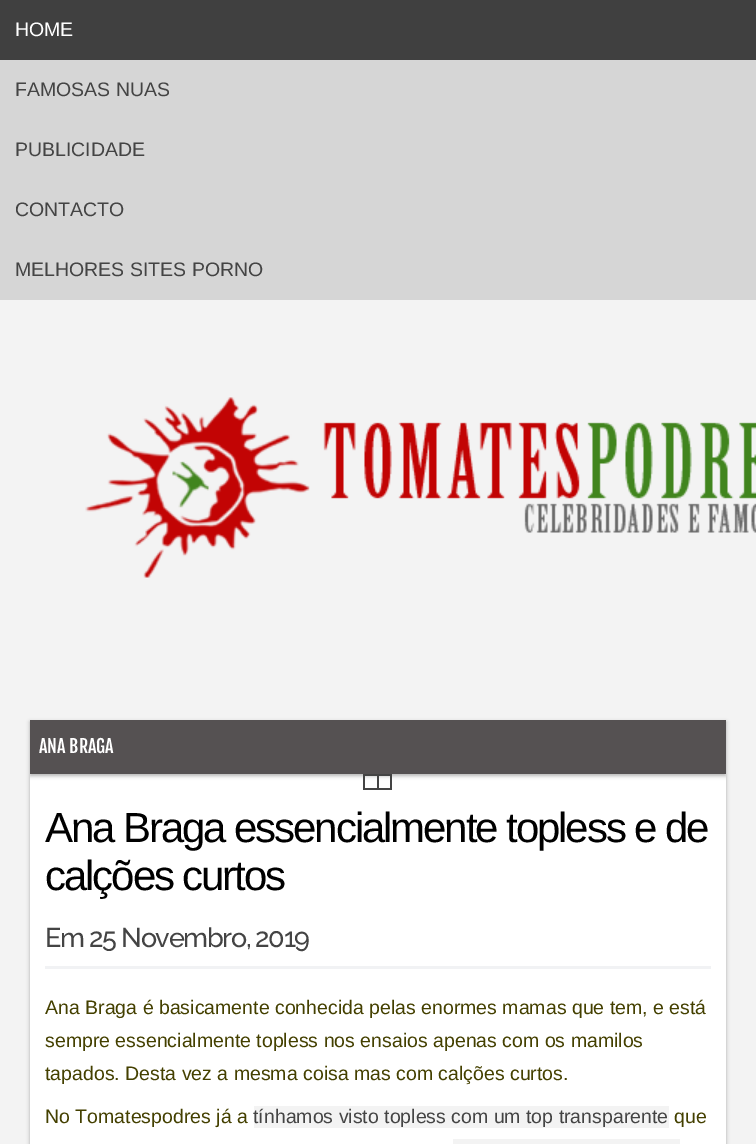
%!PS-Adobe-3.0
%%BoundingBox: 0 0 756 1144
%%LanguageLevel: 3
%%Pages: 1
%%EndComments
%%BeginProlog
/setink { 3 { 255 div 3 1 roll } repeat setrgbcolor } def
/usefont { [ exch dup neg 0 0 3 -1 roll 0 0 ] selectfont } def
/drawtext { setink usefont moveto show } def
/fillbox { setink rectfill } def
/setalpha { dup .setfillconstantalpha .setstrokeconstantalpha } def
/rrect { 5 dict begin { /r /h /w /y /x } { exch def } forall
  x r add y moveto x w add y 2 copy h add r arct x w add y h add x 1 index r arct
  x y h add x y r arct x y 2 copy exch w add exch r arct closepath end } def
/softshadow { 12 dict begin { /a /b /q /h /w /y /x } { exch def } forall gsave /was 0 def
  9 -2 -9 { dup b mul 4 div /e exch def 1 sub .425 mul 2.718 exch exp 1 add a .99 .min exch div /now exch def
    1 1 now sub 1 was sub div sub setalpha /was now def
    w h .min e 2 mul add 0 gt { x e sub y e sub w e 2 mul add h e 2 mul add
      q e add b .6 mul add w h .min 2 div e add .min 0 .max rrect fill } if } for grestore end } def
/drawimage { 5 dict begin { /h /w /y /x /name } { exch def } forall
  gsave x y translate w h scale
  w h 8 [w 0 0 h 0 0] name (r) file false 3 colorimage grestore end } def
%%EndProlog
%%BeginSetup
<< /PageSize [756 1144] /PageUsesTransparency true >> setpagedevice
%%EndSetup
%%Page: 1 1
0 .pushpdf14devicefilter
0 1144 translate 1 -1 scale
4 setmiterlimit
0 0 756 1144 243 243 243 fillbox
0 60 756 240 214 214 214 fillbox
0 0 756 60 64 64 64 fillbox
(HOME) 15 36 /LiberationSans-Regular 19.5 255 255 255 drawtext
(FAMOSAS NUAS) 15 96 /LiberationSans-Regular 19.5 68 68 68 drawtext
(PUBLICIDADE) 15 156 /LiberationSans-Regular 19.5 68 68 68 drawtext
(CONTACTO) 15 216 /LiberationSans-Regular 19.5 68 68 68 drawtext
(MELHORES SITES PORNO) 15 276 /LiberationSans-Regular 19.5 68 68 68 drawtext
(assets/img1.rgb) 85 397 671 181 drawimage
0 0 0 setink
30 722 696 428 0 2 0.3 softshadow
30 774 696 370 255 255 255 fillbox
gsave
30 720 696 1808 rectclip
0 0 0 setink
30 722 696 54 0 2 0.3 softshadow
grestore
30 720 696 54 85 81 82 fillbox
(ANA BRAGA) 39 753 /FjallaOne-Regular 18 255 255 255 drawtext
377 774 15 2 68 68 68 fillbox
390 774 2 15 68 68 68 fillbox
377 788 15 2 68 68 68 fillbox
377 774 2 15 68 68 68 fillbox
363 774 15 2 68 68 68 fillbox
363 788 15 2 68 68 68 fillbox
363 774 2 15 68 68 68 fillbox
/LiberationSans-Regular 42 usefont
0 0 0 setink
45 842 moveto -2.1 0 (Ana Braga essencialmente topless e de) ashow
45 890 moveto -2.1 0 (calções curtos) ashow
/Raleway-Thin 27 usefont
68 68 68 setink
45 947 moveto -1.35 0 (Em 25 Novembro, 2019) ashow
45 966 666 3 241 242 244 fillbox
(Ana Braga é basicamente conhecida pelas enormes mamas que tem, e está) 45 1014 /LiberationSans-Regular 19.5 68 64 0 drawtext
(sempre essencialmente topless nos ensaios apenas com os mamilos) 45 1047 /LiberationSans-Regular 19.5 68 64 0 drawtext
(tapados. Desta vez a mesma coisa mas com calções curtos.) 45 1080 /LiberationSans-Regular 19.5 68 64 0 drawtext
(No Tomatespodres já a) 45 1123 /LiberationSans-Regular 19.5 68 64 0 drawtext
254 1106 415 22 243 243 243 fillbox
(tínhamos visto topless com um top transparente) 253 1123 /LiberationSans-Regular 19.5 68 68 68 drawtext
(que) 674 1123 /LiberationSans-Regular 19.5 68 64 0 drawtext
453 1139 227 5 243 243 243 fillbox
.poppdf14devicefilter showpage
%%EOF
